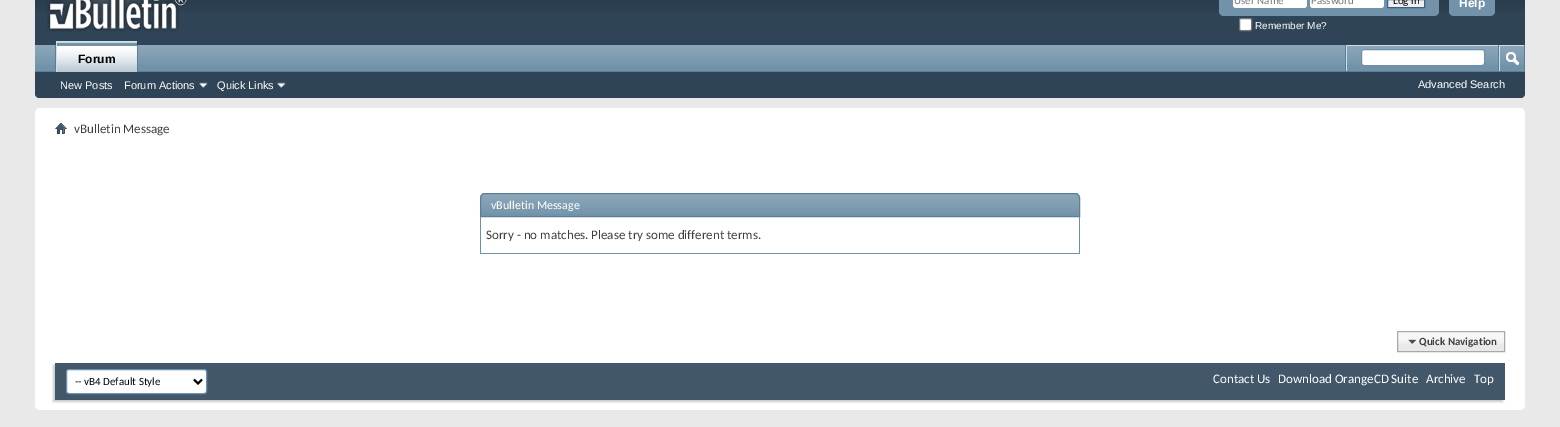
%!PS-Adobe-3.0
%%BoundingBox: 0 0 1560 427
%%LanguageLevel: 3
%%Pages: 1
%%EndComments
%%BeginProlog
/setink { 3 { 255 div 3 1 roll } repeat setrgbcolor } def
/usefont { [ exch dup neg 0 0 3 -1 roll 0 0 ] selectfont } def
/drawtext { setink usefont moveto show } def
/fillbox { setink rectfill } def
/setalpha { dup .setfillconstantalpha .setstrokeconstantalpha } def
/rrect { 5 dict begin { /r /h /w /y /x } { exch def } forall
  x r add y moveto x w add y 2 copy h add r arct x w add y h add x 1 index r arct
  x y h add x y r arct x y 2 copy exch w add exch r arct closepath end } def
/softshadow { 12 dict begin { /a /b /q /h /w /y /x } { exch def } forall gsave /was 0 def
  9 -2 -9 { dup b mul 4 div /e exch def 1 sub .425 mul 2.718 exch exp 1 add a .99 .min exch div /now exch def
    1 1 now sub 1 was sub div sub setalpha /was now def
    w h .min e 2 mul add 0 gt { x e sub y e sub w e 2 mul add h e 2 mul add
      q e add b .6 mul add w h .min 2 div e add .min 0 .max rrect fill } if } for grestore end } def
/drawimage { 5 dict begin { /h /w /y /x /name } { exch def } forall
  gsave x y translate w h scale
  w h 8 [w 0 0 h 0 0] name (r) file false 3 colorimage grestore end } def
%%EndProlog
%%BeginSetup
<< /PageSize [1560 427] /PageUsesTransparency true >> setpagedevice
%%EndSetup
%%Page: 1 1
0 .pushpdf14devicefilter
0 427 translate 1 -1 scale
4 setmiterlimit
0 0 1560 427 233 233 233 fillbox
47 68 86 setink
35 -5 moveto 1525 -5 lineto 1525 93 lineto 1525 96 1523 98 1520 98 curveto 40 98 lineto 37 98 35 96 35 93 curveto closepath fill
(assets/img1.rgb) 35 0 1490 12 drawimage
(assets/img2.rgb) 47 0 140 32 drawimage
113 146 168 setink
1219 -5 moveto 1439 -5 lineto 1439 11 lineto 1439 14 1437 16 1434 16 curveto 1224 16 lineto 1221 16 1219 14 1219 11 curveto closepath fill
255 255 255 setink
1233 -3 74 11 3 rrect fill
(User Name) 1234 4 /Carlito-Regular 11 119 119 119 drawtext
255 255 255 setink
1310 -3 74 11 3 rrect fill
(Password) 1311 4 /Carlito-Regular 11 119 119 119 drawtext
239 239 239 setink
1387.5 -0.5 moveto 1424.5 -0.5 lineto 1424.5 7.5 lineto 1387.5 7.5 lineto closepath gsave fill grestore
65 93 141 setink
stroke
(Log in) 1393 4 /Carlito-Regular 11 0 0 0 drawtext
255 255 255 setink
1239.5 18.5 12 12 1.5 rrect gsave fill grestore
118 118 118 setink
stroke
(Remember Me?) 1255 29 /LiberationSans-Regular 10 255 255 255 drawtext
113 146 168 setink
1449 -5 moveto 1495 -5 lineto 1495 11 lineto 1495 14 1493 16 1490 16 curveto 1454 16 lineto 1451 16 1449 14 1449 11 curveto closepath fill
(Help) 1459 7 /LiberationSans-Bold 12 255 255 255 drawtext
47 68 86 setink
35 45 moveto 1525 45 lineto 1525 93 lineto 1525 96 1523 98 1520 98 curveto 40 98 lineto 37 98 35 96 35 93 curveto closepath fill
35 45 1489 26 113 146 168 fillbox
(assets/img3.rgb) 35 45 1489 20 drawimage
137 45 1 26 90 127 151 fillbox
55 45 1 26 90 127 151 fillbox
35 71 1490 1 90 127 151 fillbox
57 42 80 30 113 146 168 fillbox
(assets/img4.rgb) 57 42 80 30 drawimage
56 41 81 1 206 223 235 fillbox
56 41 1 31 206 223 235 fillbox
(Forum) 78 63 /LiberationSans-Bold 12 0 0 0 drawtext
(New Posts) 60 89 /LiberationSans-Regular 11 255 255 255 drawtext
(Forum Actions) 124 89 /LiberationSans-Regular 11 255 255 255 drawtext
(assets/img5.rgb) 199 82 9 6 drawimage
(Quick Links) 217 89 /LiberationSans-Regular 11 255 255 255 drawtext
(assets/img5.rgb) 277 82 9 6 drawimage
1345 45 1 26 90 127 151 fillbox
1346 45 152 1 206 223 235 fillbox
1346 45 1 26 206 223 235 fillbox
255 255 255 setink
1361.5 49.5 123 16 2.5 rrect gsave fill grestore
107 145 171 setink
stroke
1524 45 1 26 90 127 151 fillbox
1498 45 1 26 90 127 151 fillbox
1499 45 25 1 206 223 235 fillbox
1499 45 1 26 206 223 235 fillbox
(assets/img6.rgb) 1506 52 13 14 drawimage
(Advanced Search) 1418 88 /LiberationSans-Regular 11 255 255 255 drawtext
35 108 1490 302 5 rrect fill
(assets/img7.rgb) 55 123 12 11 drawimage
(vBulletin Message) 74 133 /Carlito-Regular 13 62 62 62 drawtext
113 146 168 setink
485 193 moveto 1075 193 lineto 1078 193 1080 195 1080 198 curveto 1080 217 lineto 480 217 lineto 480 198 lineto 480 195 482 193 485 193 curveto closepath fill
(assets/img8.rgb) 480 194 600 20 drawimage
90 127 151 setink
485 193.5 moveto 1075 193.5 lineto 1077.5 193.5 1079.5 195.5 1079.5 198 curveto 1079.5 216.5 lineto 480.5 216.5 lineto 480.5 198 lineto 480.5 195.5 482.5 193.5 485 193.5 curveto closepath stroke
(vBulletin Message) 491 209 /Carlito-Regular 12 255 255 255 drawtext
1079 217 1 37 107 145 171 fillbox
480 253 600 1 107 145 171 fillbox
480 217 1 37 107 145 171 fillbox
(Sorry - no matches. Please try some different terms.) 486 239 /Carlito-Regular 13 62 62 62 drawtext
1398 332 106 19 233 233 233 fillbox
(assets/img9.rgb) 1398 332 106 12 drawimage
168 168 168 setink
1397.5 331.5 107 20 rectstroke
(assets/img10.rgb) 1408 339 9 6 drawimage
(Quick Navigation) 1419 345 /Carlito-Bold 11 62 62 62 drawtext
200 200 200 setink
53 365 1450 37 0 1 1 softshadow
55 363 1450 37 66 87 105 fillbox
255 255 255 setink
66.5 369.5 140 24 2.5 rrect gsave fill grestore
107 145 171 setink
stroke
0 0 0 setink
2 setlinewidth
194 379.5 moveto 198 383.5 lineto 202 379.5 lineto stroke
(-- vB4 Default Style) 75 385 /Carlito-Regular 11 0 0 0 drawtext
(Contact Us) 1213 383 /Carlito-Regular 13 255 255 255 drawtext
(Download OrangeCD Suite) 1278 383 /Carlito-Regular 13 255 255 255 drawtext
(Archive) 1426 383 /Carlito-Regular 13 255 255 255 drawtext
(Top) 1474 383 /Carlito-Regular 13 255 255 255 drawtext
.poppdf14devicefilter showpage
%%EOF
